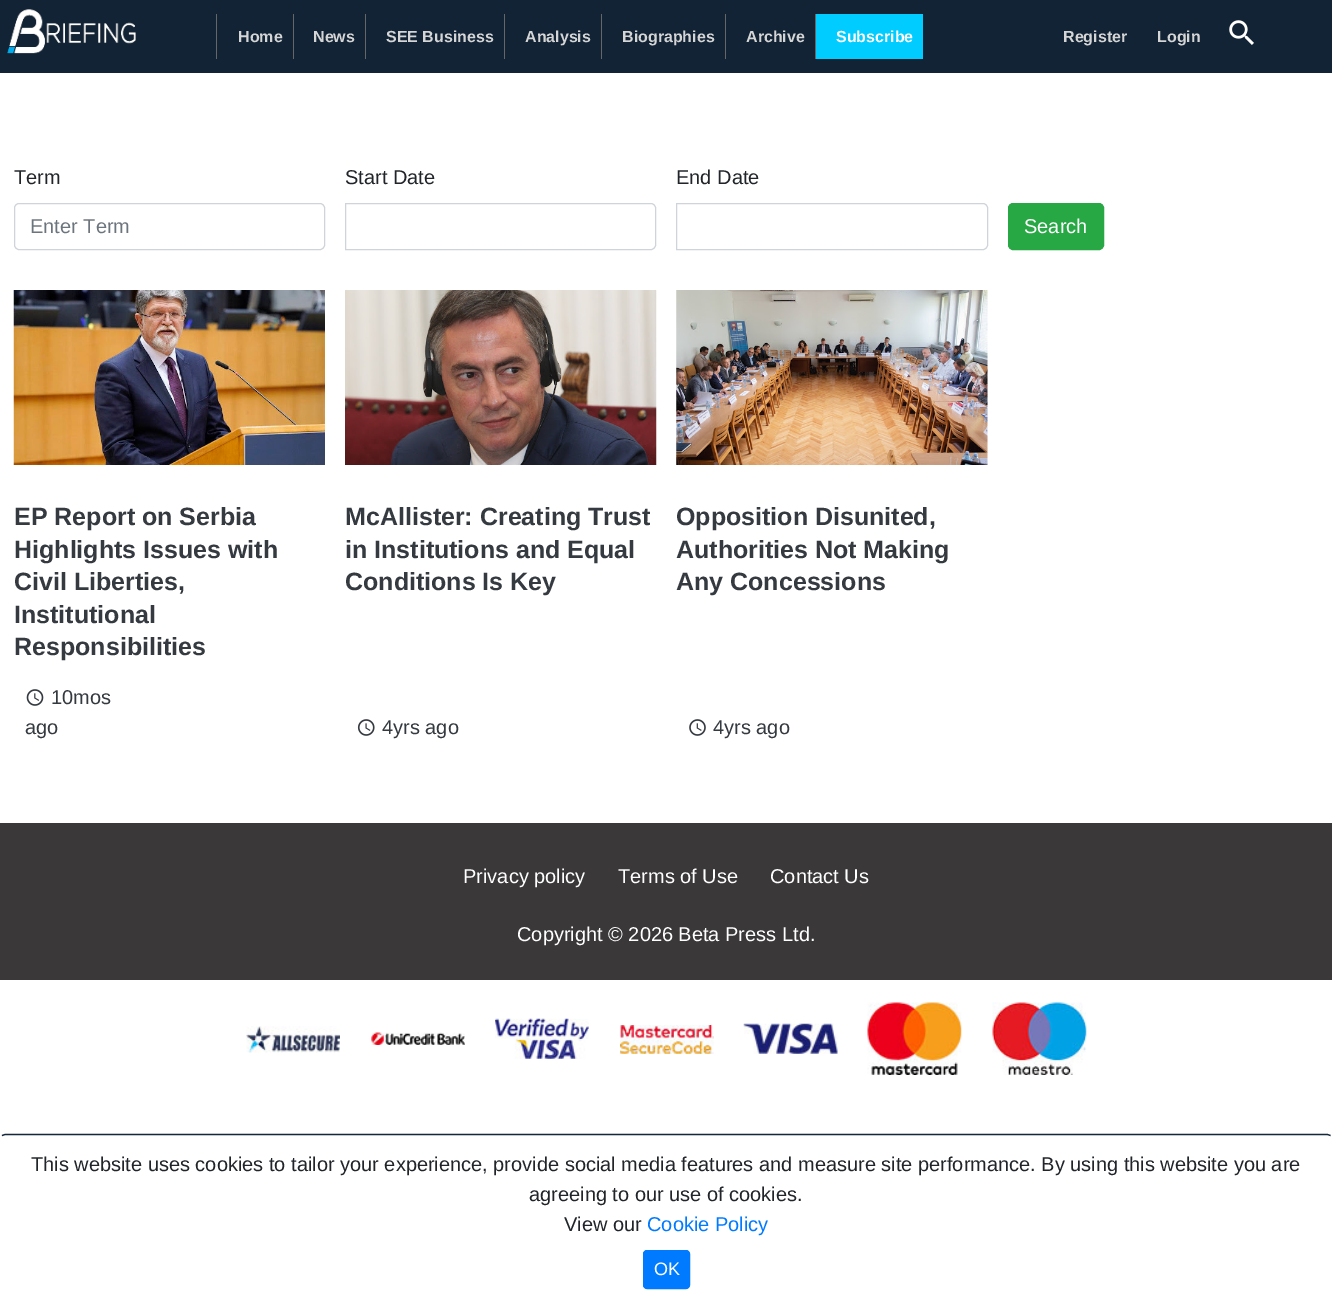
%!PS-Adobe-3.0
%%BoundingBox: 0 0 1332 1305
%%LanguageLevel: 3
%%Pages: 1
%%EndComments
%%BeginProlog
/setink { 3 { 255 div 3 1 roll } repeat setrgbcolor } def
/usefont { [ exch dup neg 0 0 3 -1 roll 0 0 ] selectfont } def
/drawtext { setink usefont moveto show } def
/fillbox { setink rectfill } def
/rrect { 5 dict begin { /r /h /w /y /x } { exch def } forall
  x r add y moveto x w add y 2 copy h add r arct x w add y h add x 1 index r arct
  x y h add x y r arct x y 2 copy exch w add exch r arct closepath end } def
/drawimage { 5 dict begin { /h /w /y /x /name } { exch def } forall
  gsave x y translate w h scale
  w h 8 [w 0 0 h 0 0] name (r) file false 3 colorimage grestore end } def
%%EndProlog
%%BeginSetup
<< /PageSize [1332 1305] >> setpagedevice
%%EndSetup
%%Page: 1 1
0 1305 translate 1 -1 scale
4 setmiterlimit
0 0 1332 1305 255 255 255 fillbox
0 0 1332 73 17 35 53 fillbox
(assets/img1.rgb) 7 9 129 45 drawimage
216 14 1 45 102 102 102 fillbox
(Home) 238 42 /LiberationSans-Bold 16 213 213 213 drawtext
293 14 1 45 102 102 102 fillbox
(News) 313 42 /LiberationSans-Bold 16 213 213 213 drawtext
365 14 1 45 102 102 102 fillbox
(SEE Business) 386 42 /LiberationSans-Bold 16 213 213 213 drawtext
504 14 1 45 102 102 102 fillbox
(Analysis) 525 42 /LiberationSans-Bold 16 213 213 213 drawtext
601 14 1 45 102 102 102 fillbox
(Biographies) 622 42 /LiberationSans-Bold 16 213 213 213 drawtext
725 14 1 45 102 102 102 fillbox
(Archive) 746 42 /LiberationSans-Bold 16 213 213 213 drawtext
816 14 107 45 0 204 255 fillbox
815 14 1 45 102 102 102 fillbox
(Subscribe) 836 42 /LiberationSans-Bold 16 255 255 255 drawtext
(Register) 1063 42 /LiberationSans-Bold 16 213 213 213 drawtext
(Login) 1157 42 /LiberationSans-Bold 16 213 213 213 drawtext
(assets/img2.rgb) 1229 20 25 25 drawimage
(Term) 14 184 /LiberationSans-Regular 20 33 37 41 drawtext
206 212 218 setink
14.5 203.5 310 46 4.5 rrect stroke
(Enter Term) 30 233 /LiberationSans-Regular 20 108 117 125 drawtext
(Start Date) 345 184 /LiberationSans-Regular 20 33 37 41 drawtext
206 212 218 setink
345.5 203.5 moveto 651 203.5 lineto 653.5 203.5 655.5 205.5 655.5 208 curveto 655.5 245 lineto 655.5 247.5 653.5 249.5 651 249.5 curveto 345.5 249.5 lineto closepath stroke
(End Date) 676 184 /LiberationSans-Regular 20 33 37 41 drawtext
206 212 218 setink
676.5 203.5 moveto 983 203.5 lineto 985.5 203.5 987.5 205.5 987.5 208 curveto 987.5 245 lineto 987.5 247.5 985.5 249.5 983 249.5 curveto 676.5 249.5 lineto closepath stroke
40 167 69 setink
1008.5 203.5 95 46 4.5 rrect gsave fill grestore
stroke
(Search) 1024 233 /LiberationSans-Regular 20 255 255 255 drawtext
(assets/img3.rgb) 13 290 312 175 drawimage
(EP Report on Serbia) 14 525 /LiberationSans-Bold 25 52 58 64 drawtext
(Highlights Issues with) 14 558 /LiberationSans-Bold 25 52 58 64 drawtext
(Civil Liberties,) 14 590 /LiberationSans-Bold 25 52 58 64 drawtext
(Institutional) 14 623 /LiberationSans-Bold 25 52 58 64 drawtext
(Responsibilities) 14 655 /LiberationSans-Bold 25 52 58 64 drawtext
(assets/img4.rgb) 26 689 18 17 drawimage
(10mos) 51 704 /LiberationSans-Regular 20 52 58 64 drawtext
(ago) 25 734 /LiberationSans-Regular 20 52 58 64 drawtext
(assets/img5.rgb) 345 290 312 175 drawimage
(McAllister: Creating Trust) 345 525 /LiberationSans-Bold 25 52 58 64 drawtext
(in Institutions and Equal) 345 558 /LiberationSans-Bold 25 52 58 64 drawtext
(Conditions Is Key) 345 590 /LiberationSans-Bold 25 52 58 64 drawtext
(assets/img6.rgb) 357 719 18 17 drawimage
(4yrs ago) 382 734 /LiberationSans-Regular 20 52 58 64 drawtext
(assets/img7.rgb) 676 290 312 175 drawimage
(Opposition Disunited,) 676 525 /LiberationSans-Bold 25 52 58 64 drawtext
(Authorities Not Making) 676 558 /LiberationSans-Bold 25 52 58 64 drawtext
(Any Concessions) 676 590 /LiberationSans-Bold 25 52 58 64 drawtext
(assets/img8.rgb) 689 719 17 17 drawimage
(4yrs ago) 713 734 /LiberationSans-Regular 20 52 58 64 drawtext
0 823 1332 157 58 56 56 fillbox
(Privacy policy) 463 883 /LiberationSans-Regular 20 255 255 255 drawtext
(Terms of Use) 618 883 /LiberationSans-Regular 20 255 255 255 drawtext
(Contact Us) 770 883 /LiberationSans-Regular 20 255 255 255 drawtext
(Copyright © 2026 Beta Press Ltd.) 517 941 /LiberationSans-Regular 20 255 255 255 drawtext
(assets/img9.rgb) 246 1026 94 27 drawimage
(assets/img10.rgb) 371 1032 94 13 drawimage
(assets/img11.rgb) 495 1018 94 41 drawimage
(assets/img12.rgb) 620 1025 94 29 drawimage
(assets/img13.rgb) 743 1023 95 31 drawimage
(assets/img14.rgb) 867 1002 95 73 drawimage
(assets/img15.rgb) 992 1002 95 73 drawimage
21 39 59 setink
1.2 setlinewidth
2 1135.5 moveto 5 1134.5 lineto 1327.5 1134.5 lineto 1330.5 1135.5 lineto stroke
(This website uses cookies to tailor your experience, provide social media features and measure site performance. By using this website you are) 31 1171 /LiberationSans-Regular 20 33 37 41 drawtext
(agreeing to our use of cookies.) 529 1201 /LiberationSans-Regular 20 33 37 41 drawtext
(View our) 564 1231 /LiberationSans-Regular 20 33 37 41 drawtext
(Cookie Policy) 647 1231 /LiberationSans-Regular 20 0 123 255 drawtext
643.5 1250.5 46 38 3.5 rrect gsave fill grestore
1 setlinewidth
stroke
(OK) 654 1275 /LiberationSans-Regular 18 255 255 255 drawtext
showpage
%%EOF
